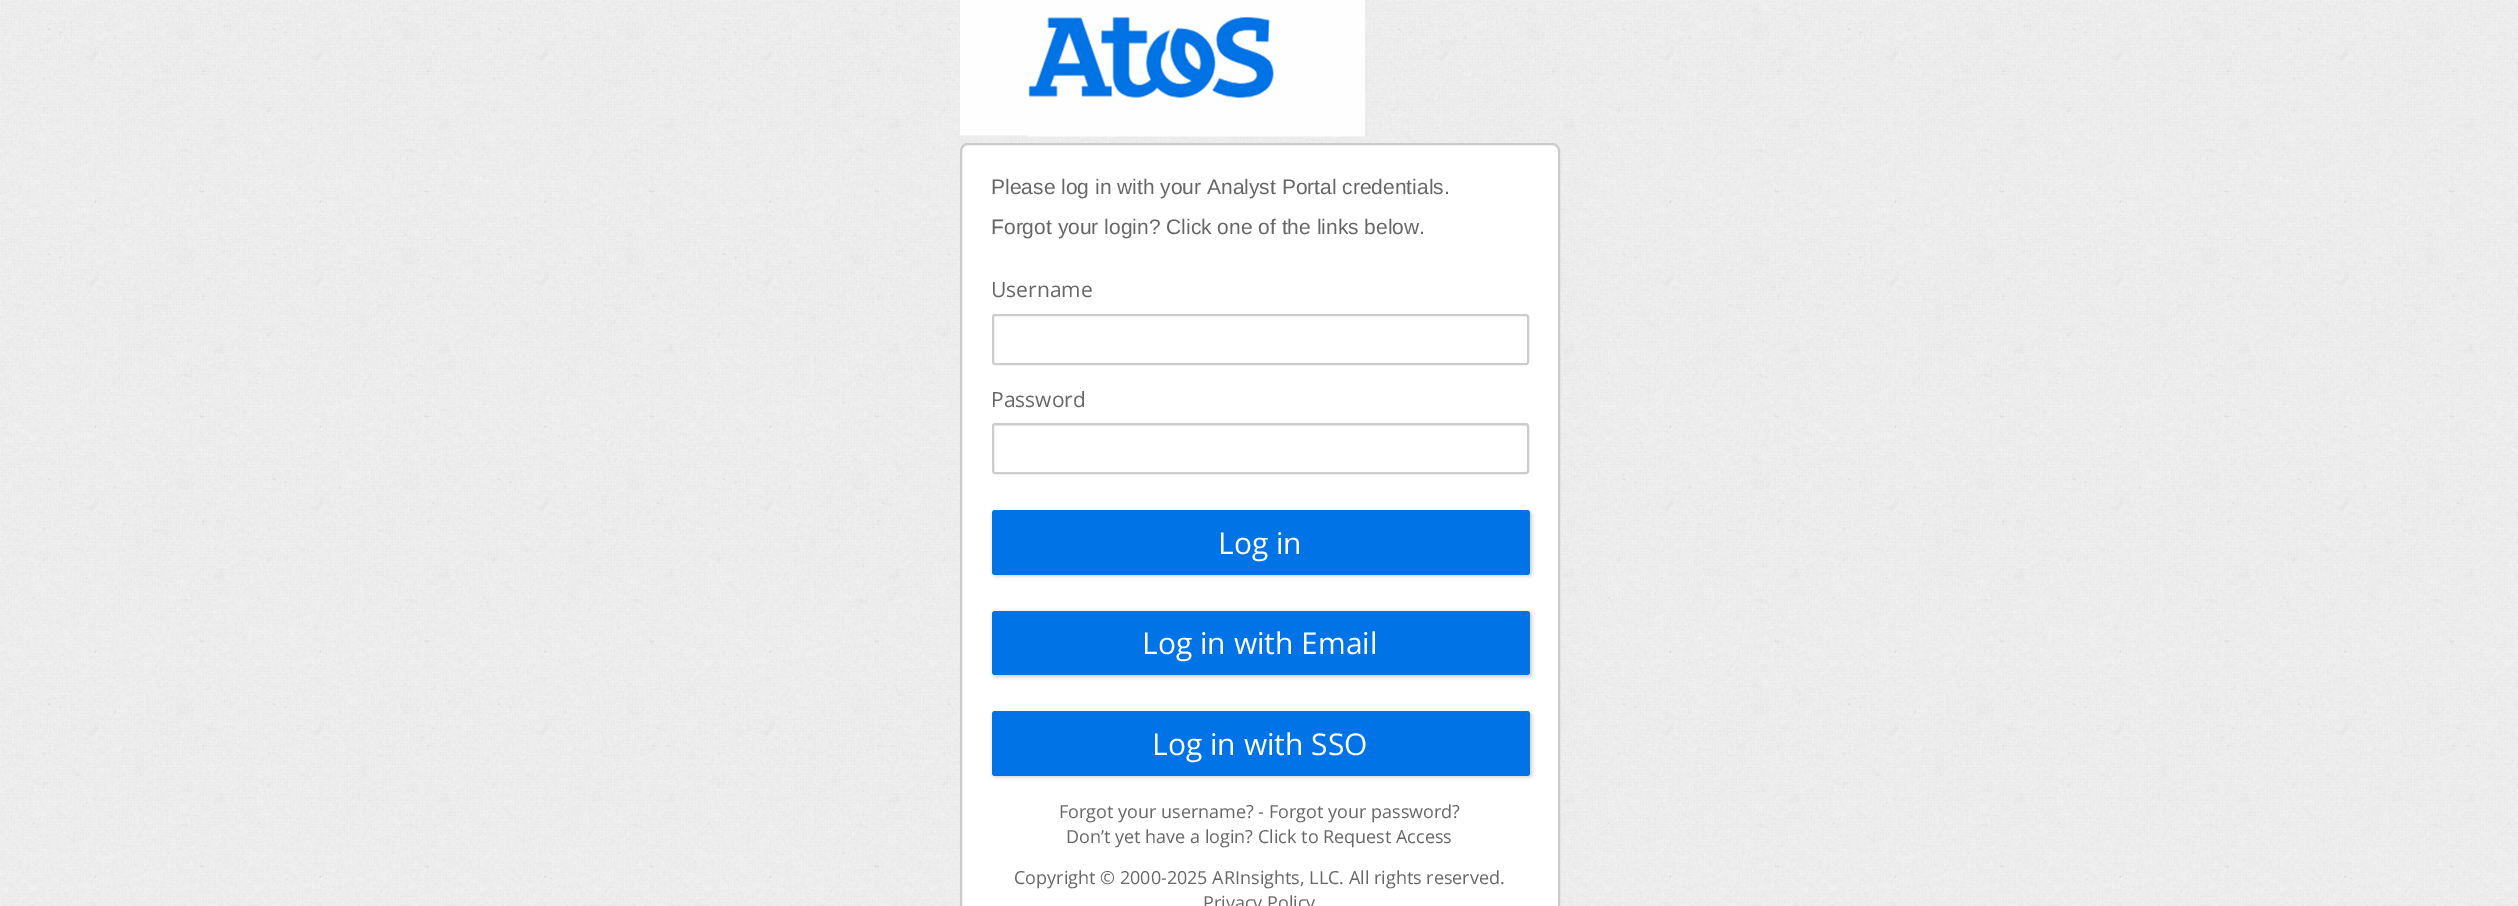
%!PS-Adobe-3.0
%%BoundingBox: 0 0 2518 906
%%LanguageLevel: 3
%%Pages: 1
%%EndComments
%%BeginProlog
/setink { 3 { 255 div 3 1 roll } repeat setrgbcolor } def
/usefont { [ exch dup neg 0 0 3 -1 roll 0 0 ] selectfont } def
/drawtext { setink usefont moveto show } def
/fillbox { setink rectfill } def
/setalpha { dup .setfillconstantalpha .setstrokeconstantalpha } def
/rrect { 5 dict begin { /r /h /w /y /x } { exch def } forall
  x r add y moveto x w add y 2 copy h add r arct x w add y h add x 1 index r arct
  x y h add x y r arct x y 2 copy exch w add exch r arct closepath end } def
/softshadow { 12 dict begin { /a /b /q /h /w /y /x } { exch def } forall gsave /was 0 def
  9 -2 -9 { dup b mul 4 div /e exch def 1 sub .425 mul 2.718 exch exp 1 add a .99 .min exch div /now exch def
    1 1 now sub 1 was sub div sub setalpha /was now def
    w h .min e 2 mul add 0 gt { x e sub y e sub w e 2 mul add h e 2 mul add
      q e add b .6 mul add w h .min 2 div e add .min 0 .max rrect fill } if } for grestore end } def
/drawimage { 5 dict begin { /h /w /y /x /name } { exch def } forall
  gsave x y translate w h scale
  w h 8 [w 0 0 h 0 0] name (r) file false 3 colorimage grestore end } def
%%EndProlog
%%BeginSetup
<< /PageSize [2518 906] /PageUsesTransparency true >> setpagedevice
%%EndSetup
%%Page: 1 1
0 .pushpdf14devicefilter
0 906 translate 1 -1 scale
4 setmiterlimit
0 0 2518 906 255 255 255 fillbox
(assets/img1.rgb) 0 0 2518 906 drawimage
(assets/img2.rgb) 960 0 405 137 drawimage
961 144 598 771 7 rrect gsave fill grestore
203 203 203 setink
2 setlinewidth
stroke
(Please log in with your Analyst Portal credentials.) 991 194 /LiberationSans-Regular 21 102 102 102 drawtext
(Forgot your login? Click one of the links below.) 991 234 /LiberationSans-Regular 21 102 102 102 drawtext
(Username) 991 297 /OpenSans-Regular 21 102 102 102 drawtext
236 236 236 setink
994 316 moveto 1526 316 lineto 1527 318 lineto 1527 316 lineto 1526 315 lineto 994 315 lineto 993 316 993 317 993 318 curveto closepath fill
204 204 204 setink
993 315 535 49 2 rrect stroke
(Password) 991 407 /OpenSans-Regular 21 102 102 102 drawtext
236 236 236 setink
994 426 moveto 1526 426 lineto 1527 428 lineto 1527 426 lineto 1526 425 lineto 994 425 lineto 993 426 993 427 993 428 curveto closepath fill
204 204 204 setink
993 424 535 49 2 rrect stroke
993 512 539 64 3 2 1 softshadow
0 115 230 setink
992 510 538 65 3 rrect fill
(Log in) 1218 554 /OpenSans-Regular 30 255 255 255 drawtext
204 204 204 setink
993 612 539 65 3 2 1 softshadow
0 115 230 setink
992 611 538 64 3 rrect fill
(Log in with Email) 1142 654 /OpenSans-Regular 30 255 255 255 drawtext
204 204 204 setink
993 713 539 64 3 2 1 softshadow
0 115 230 setink
992 711 538 65 3 rrect fill
(Log in with SSO) 1152 755 /OpenSans-Regular 30 255 255 255 drawtext
(Forgot your username? - Forgot your password?) 1059 818 /OpenSans-Regular 18 102 102 102 drawtext
(Don’t yet have a login? Click to Request Access) 1066 843 /OpenSans-Regular 18 102 102 102 drawtext
(Copyright © 2000-2025 ARInsights, LLC. All rights reserved.) 1014 884 /OpenSans-Regular 18 102 102 102 drawtext
(Privacy Policy) 1203 909 /OpenSans-Regular 18 102 102 102 drawtext
.poppdf14devicefilter showpage
%%EOF
